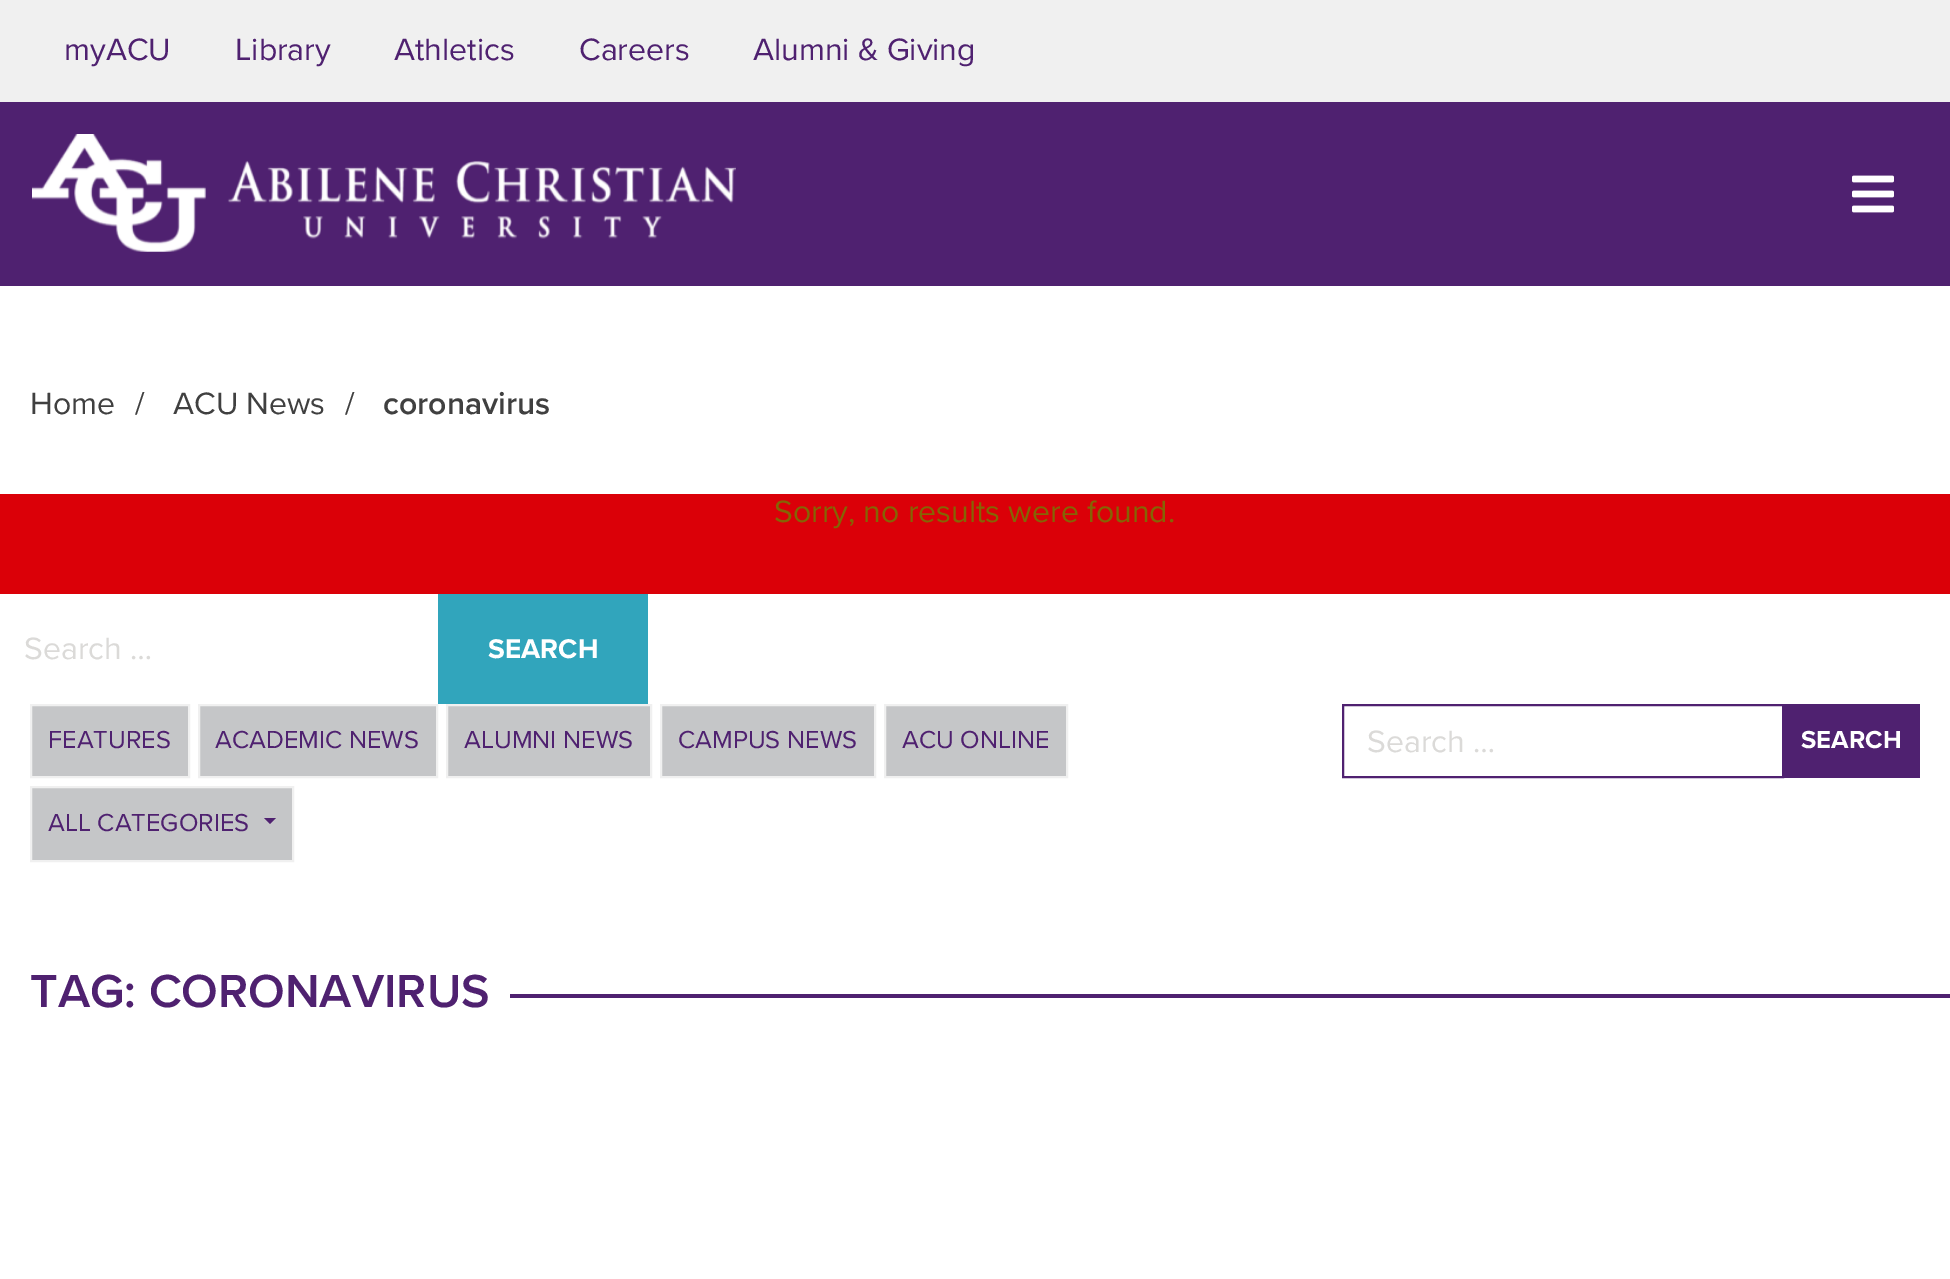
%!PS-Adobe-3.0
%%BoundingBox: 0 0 1950 1279
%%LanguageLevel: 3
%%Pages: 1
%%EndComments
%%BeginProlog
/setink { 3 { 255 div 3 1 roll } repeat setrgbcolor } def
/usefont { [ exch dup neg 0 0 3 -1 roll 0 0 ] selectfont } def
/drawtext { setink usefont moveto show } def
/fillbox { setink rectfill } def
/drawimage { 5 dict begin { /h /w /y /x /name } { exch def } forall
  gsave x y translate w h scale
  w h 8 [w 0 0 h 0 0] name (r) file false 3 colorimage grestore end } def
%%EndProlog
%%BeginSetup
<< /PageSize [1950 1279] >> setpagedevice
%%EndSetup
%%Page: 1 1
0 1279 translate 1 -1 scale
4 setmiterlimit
0 0 1950 1279 255 255 255 fillbox
0 102 1950 184 79 33 112 fillbox
0 0 1950 102 240 240 240 fillbox
(myACU) 64 60 /ProximaNova-Regular 32 79 33 112 drawtext
(Library) 235 60 /ProximaNova-Regular 32 79 33 112 drawtext
(Athletics) 394 60 /ProximaNova-Regular 32 79 33 112 drawtext
(Careers) 579 60 /ProximaNova-Regular 32 79 33 112 drawtext
(Alumni & Giving) 753 60 /ProximaNova-Regular 32 79 33 112 drawtext
(assets/img1.rgb) 32 134 704 118 drawimage
(assets/img2.rgb) 1852 175 42 38 drawimage
(Home) 30 414 /ProximaNova-Regular 32 64 64 64 drawtext
(/) 135 414 /ProximaNova-Regular 32 64 64 64 drawtext
(ACU News) 173 414 /ProximaNova-Regular 32 64 64 64 drawtext
(/) 345 414 /ProximaNova-Regular 32 64 64 64 drawtext
(coronavirus) 383 414 /ProximaNova-SemiBold 32 64 64 64 drawtext
0 494 1950 100 219 0 8 fillbox
(Sorry, no results were found.) 774 522 /ProximaNova-Regular 32 133 100 4 drawtext
(Search …) 24 659 /ProximaNova-Regular 32 219 218 216 drawtext
438 594 210 110 49 165 188 fillbox
(SEARCH) 488 658 /ProximaNova-Bold 28 255 255 255 drawtext
197 198 200 setink
31 705 moveto 189 705 lineto 189 777 lineto 31 777 lineto closepath gsave fill grestore
240 240 240 setink
2 setlinewidth
stroke
(FEATURES) 48 748 /ProximaNova-Regular 25.5 79 33 112 drawtext
197 198 200 setink
199 705 moveto 437 705 lineto 437 777 lineto 199 777 lineto closepath gsave fill grestore
240 240 240 setink
stroke
(ACADEMIC NEWS) 215 748 /ProximaNova-Regular 25.5 79 33 112 drawtext
197 198 200 setink
447 705 moveto 651 705 lineto 651 777 lineto 447 777 lineto closepath gsave fill grestore
240 240 240 setink
stroke
(ALUMNI NEWS) 464 748 /ProximaNova-Regular 25.5 79 33 112 drawtext
197 198 200 setink
661 705 moveto 875 705 lineto 875 777 lineto 661 777 lineto closepath gsave fill grestore
240 240 240 setink
stroke
(CAMPUS NEWS) 678 748 /ProximaNova-Regular 25.5 79 33 112 drawtext
197 198 200 setink
885 705 moveto 1067 705 lineto 1067 777 lineto 885 777 lineto closepath gsave fill grestore
240 240 240 setink
stroke
(ACU ONLINE) 902 748 /ProximaNova-Regular 25.5 79 33 112 drawtext
197 198 200 setink
31 787 moveto 293 787 lineto 293 861 lineto 31 861 lineto closepath gsave fill grestore
240 240 240 setink
stroke
(ALL CATEGORIES) 48 831 /ProximaNova-Regular 25.5 79 33 112 drawtext
264 818 moveto 276 818 lineto 270 824 lineto closepath fill
1343 705 440 72 rectstroke
(Search …) 1367 752 /ProximaNova-Regular 32 219 218 216 drawtext
1784 704 136 74 79 33 112 fillbox
(SEARCH) 1801 748 /ProximaNova-Bold 25.5 255 255 255 drawtext
(TAG: CORONAVIRUS) 30 1007 /ProximaNova-SemiBold 48 79 33 112 drawtext
510 994 1440 4 79 33 112 fillbox
showpage
%%EOF
